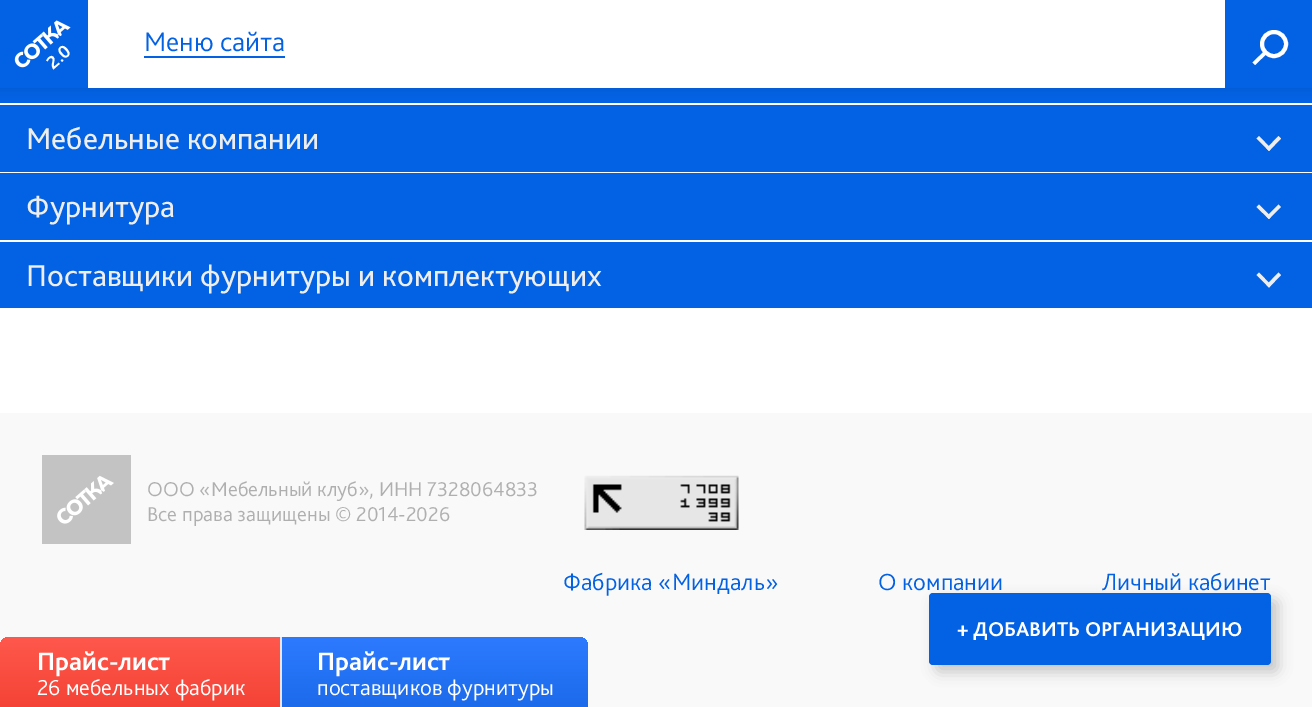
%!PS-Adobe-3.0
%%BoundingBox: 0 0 1312 707
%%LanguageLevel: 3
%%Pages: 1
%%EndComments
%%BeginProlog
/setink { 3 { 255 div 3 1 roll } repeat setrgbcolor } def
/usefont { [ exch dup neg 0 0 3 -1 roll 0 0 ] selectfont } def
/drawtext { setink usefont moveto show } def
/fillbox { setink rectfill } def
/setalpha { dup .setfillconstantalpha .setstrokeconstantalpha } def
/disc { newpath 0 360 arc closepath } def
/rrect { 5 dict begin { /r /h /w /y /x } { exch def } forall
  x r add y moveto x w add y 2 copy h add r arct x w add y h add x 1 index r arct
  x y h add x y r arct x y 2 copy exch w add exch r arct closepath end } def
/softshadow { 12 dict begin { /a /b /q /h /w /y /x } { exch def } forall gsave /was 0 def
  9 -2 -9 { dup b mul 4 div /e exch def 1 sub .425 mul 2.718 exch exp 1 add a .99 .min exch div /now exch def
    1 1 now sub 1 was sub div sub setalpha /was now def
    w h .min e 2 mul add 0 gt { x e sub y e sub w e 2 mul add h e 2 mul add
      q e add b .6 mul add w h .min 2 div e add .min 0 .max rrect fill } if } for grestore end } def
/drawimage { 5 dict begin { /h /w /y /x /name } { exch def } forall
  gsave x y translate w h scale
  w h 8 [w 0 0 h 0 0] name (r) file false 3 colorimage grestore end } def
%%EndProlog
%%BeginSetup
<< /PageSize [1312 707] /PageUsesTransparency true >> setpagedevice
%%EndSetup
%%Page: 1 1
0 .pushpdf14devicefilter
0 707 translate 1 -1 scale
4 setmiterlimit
0 0 1312 707 255 255 255 fillbox
0 88 1312 15 3 97 227 fillbox
0 0 0 setink
0 0 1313 88 0 4.5 0.1 softshadow
88 0 1137 88 255 255 255 fillbox
144 56 141 2 3 97 227 fillbox
(Меню сайта) 144 51 /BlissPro-Light 28 3 97 227 drawtext
1225 0 87 88 3 97 227 fillbox
255 255 255 setink
1265 50.5 moveto 1267.5 53 lineto 1255 65 lineto 1252.5 62.5 lineto closepath fill
4 setlinewidth
1274 44 12 disc stroke
0 0 88 88 3 97 227 fillbox
(assets/img1.rgb) 14 20 57 48 drawimage
/BlissPro-Bold 19 usefont
255 255 255 setink
gsave 53 70 translate -41 rotate 0 0 moveto (2.0) show grestore
0 105 1312 67 3 97 227 fillbox
(Мебельные компании) 26 149 /BlissPro-Regular 31.5 238 238 238 drawtext
1266.5 148.5 moveto 1278.5 136 lineto 1281 138.5 lineto 1269 151 lineto closepath fill
1256.5 138.5 moveto 1259 136 lineto 1271 148.5 lineto 1269 151 lineto closepath fill
0 173 1312 67 3 97 227 fillbox
(Фурнитура) 26 217 /BlissPro-Regular 31.5 238 238 238 drawtext
1266.5 216.5 moveto 1278.5 204.5 lineto 1281 207 lineto 1269 219 lineto closepath fill
1256.5 207 moveto 1259 204.5 lineto 1271 216.5 lineto 1269 219 lineto closepath fill
0 242 1312 66 3 97 227 fillbox
(Поставщики фурнитуры и комплектующих) 26 286 /BlissPro-Regular 31.5 238 238 238 drawtext
1266.5 285 moveto 1278.5 272.5 lineto 1281 275 lineto 1269 287.5 lineto closepath fill
1256.5 275 moveto 1259 272.5 lineto 1271 285 lineto 1269 287.5 lineto closepath fill
0 413 1312 294 249 249 249 fillbox
(assets/img2.rgb) 42 455 89 89 drawimage
(ООО «Мебельный клуб», ИНН 7328064833) 147 496 /BlissPro-Light 21 175 175 175 drawtext
(Все права защищены © 2014-2026) 147 521 /BlissPro-Light 21 175 175 175 drawtext
(assets/img3.rgb) 584 475 155 55 drawimage
(Фабрика «Миндаль») 563 590 /BlissPro-Light 24.5 3 97 227 drawtext
(О компании) 878 590 /BlissPro-Light 24.5 3 97 227 drawtext
(Личный кабинет) 1102 590 /BlissPro-Light 24.5 3 97 227 drawtext
0 0 0 setink
936 600 342 72 4 7 0.2 softshadow
3 97 227 setink
929 593 342 72 4 rrect fill
(+ ДОБАВИТЬ ОРГАНИЗАЦИЮ) 957 636 /BlissPro-Bold 21 255 255 255 drawtext
gsave 9 637 moveto 280 637 lineto 280 707 lineto 0 707 lineto 0 646 lineto 0 641 4 637 9 637 curveto closepath clip newpath
<< /ShadingType 2 /ColorSpace /DeviceRGB /Coords [141 637 141 707] /Extend [true true] /Function << /FunctionType 2 /Domain [0 1] /C0 [1 0.345 0.298] /C1 [0.957 0.263 0.212] /N 1 >> >> shfill grestore
(Прайс-лист) 37 670 /BlissPro-Bold 26.25 255 255 255 drawtext
(26 мебельных фабрик) 37 695 /BlissPro-Light 22.75 255 255 255 drawtext
gsave 280 637 moveto 579 637 lineto 584 637 588 641 588 646 curveto 588 707 lineto 280 707 lineto closepath clip newpath
<< /ShadingType 2 /ColorSpace /DeviceRGB /Coords [435 637 435 707] /Extend [true true] /Function << /FunctionType 2 /Domain [0 1] /C0 [0.176 0.478 1] /C1 [0.11 0.42 0.922] /N 1 >> >> shfill grestore
280 637 2 70 230 230 230 fillbox
(Прайс-лист) 317 670 /BlissPro-Bold 26.25 255 255 255 drawtext
(поставщиков фурнитуры) 317 695 /BlissPro-Light 22.75 255 255 255 drawtext
.poppdf14devicefilter showpage
%%EOF
